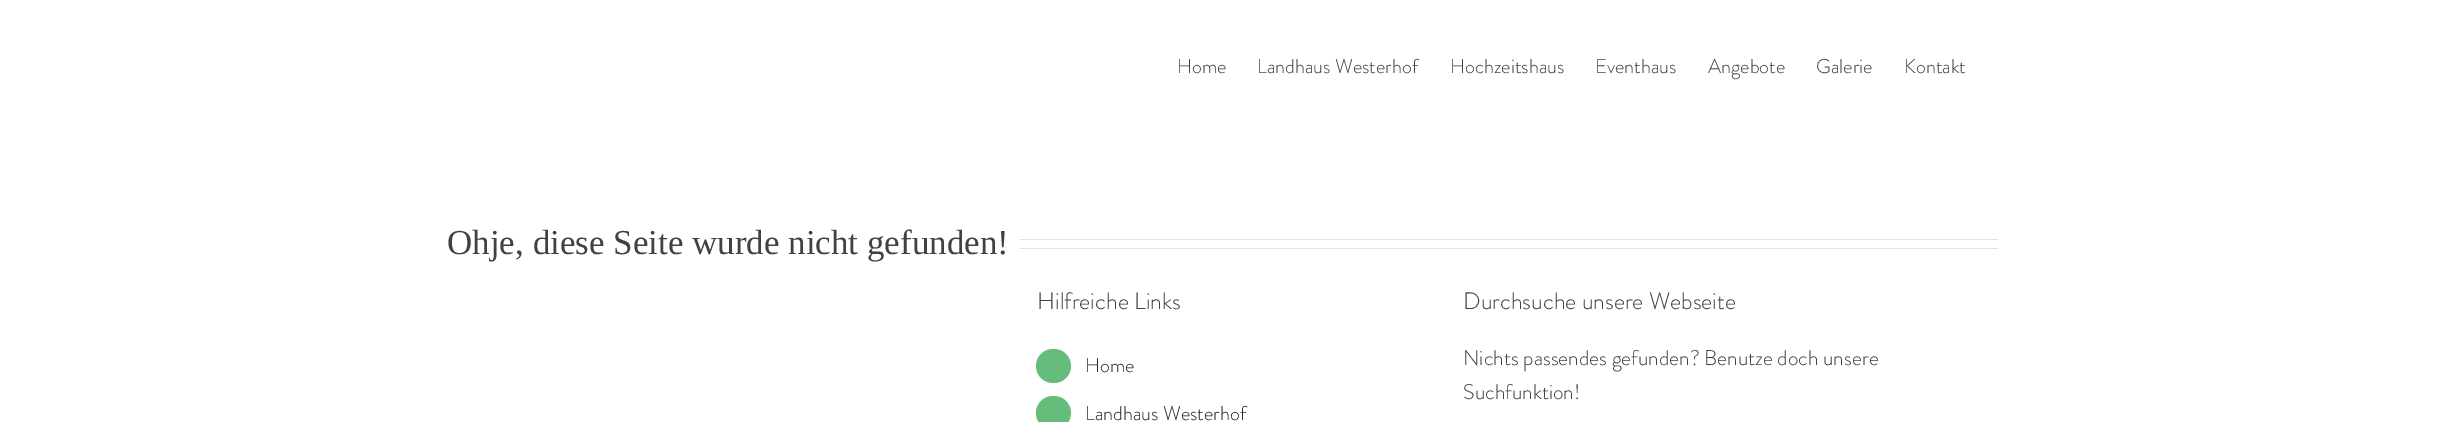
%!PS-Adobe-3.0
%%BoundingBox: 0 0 2443 422
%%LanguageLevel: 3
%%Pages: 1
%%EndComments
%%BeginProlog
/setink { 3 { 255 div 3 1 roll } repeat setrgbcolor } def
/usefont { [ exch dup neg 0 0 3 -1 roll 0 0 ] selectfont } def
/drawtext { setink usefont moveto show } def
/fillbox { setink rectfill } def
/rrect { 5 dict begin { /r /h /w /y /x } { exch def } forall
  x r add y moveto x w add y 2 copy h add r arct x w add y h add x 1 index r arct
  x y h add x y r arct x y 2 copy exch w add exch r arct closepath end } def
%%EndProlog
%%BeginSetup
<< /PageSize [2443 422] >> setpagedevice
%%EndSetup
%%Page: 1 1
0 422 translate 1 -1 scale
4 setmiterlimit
0 0 2443 422 255 255 255 fillbox
(Home) 1177 73 /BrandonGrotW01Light-Light 20 65 65 65 drawtext
(Landhaus Westerhof) 1257 73 /BrandonGrotW01Light-Light 20 65 65 65 drawtext
(Hochzeitshaus) 1450 73 /BrandonGrotW01Light-Light 20 65 65 65 drawtext
(Eventhaus) 1595 73 /BrandonGrotW01Light-Light 20 65 65 65 drawtext
(Angebote) 1708 73 /BrandonGrotW01Light-Light 20 65 65 65 drawtext
(Galerie) 1816 73 /BrandonGrotW01Light-Light 20 65 65 65 drawtext
(Kontakt) 1904 73 /BrandonGrotW01Light-Light 20 65 65 65 drawtext
(Ohje, diese Seite wurde nicht gefunden!) 447 254 /LiberationSerif-Regular 35 65 65 65 drawtext
1019 239 979 1 226 226 226 fillbox
1019 248 979 1 226 226 226 fillbox
(Hilfreiche Links) 1037 309 /BrandonGrotW01Light-Light 23.75 65 65 65 drawtext
101 188 123 setink
1036 349 35 34 17 rrect fill
(Home) 1085 372 /BrandonGrotW01Light-Light 20 33 41 52 drawtext
101 188 123 setink
1036 396 35 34 17 rrect fill
(Landhaus Westerhof) 1085 420 /BrandonGrotW01Light-Light 20 33 41 52 drawtext
(Durchsuche unsere Webseite) 1463 309 /BrandonGrotW01Light-Light 23.75 65 65 65 drawtext
(Nichts passendes gefunden? Benutze doch unsere) 1463 365 /BrandonGrotW01Light-Light 21.25 65 65 65 drawtext
(Suchfunktion!) 1463 399 /BrandonGrotW01Light-Light 21.25 65 65 65 drawtext
showpage
%%EOF
